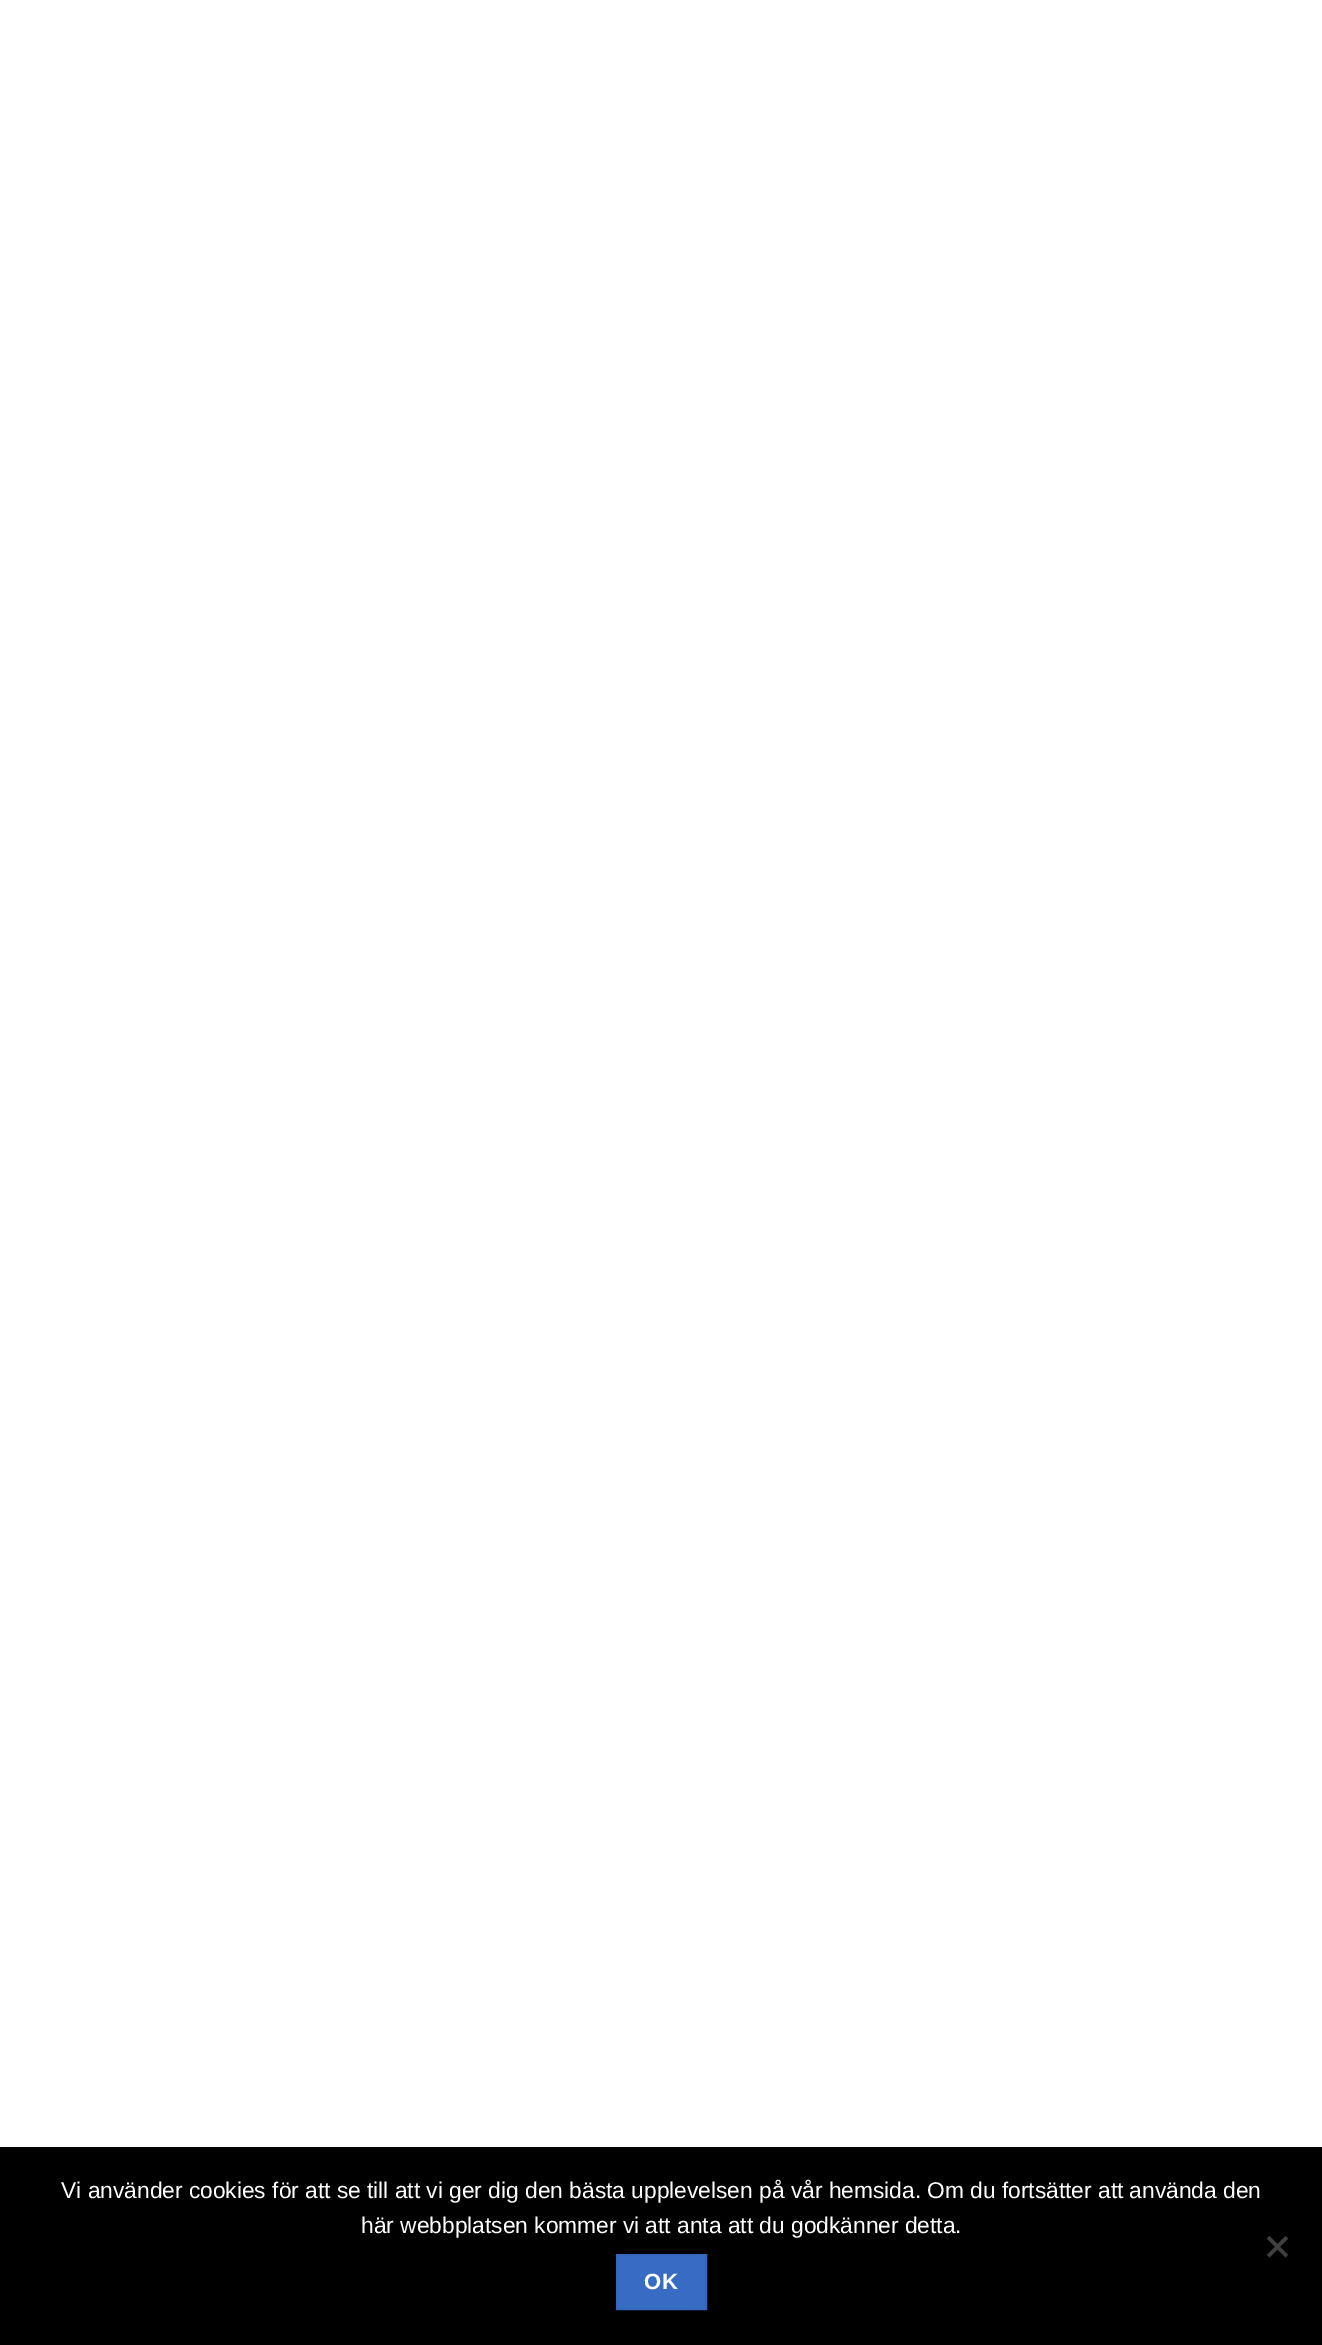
%!PS-Adobe-3.0
%%BoundingBox: 0 0 1322 2345
%%LanguageLevel: 3
%%Pages: 1
%%EndComments
%%BeginProlog
/setink { 3 { 255 div 3 1 roll } repeat setrgbcolor } def
/usefont { [ exch dup neg 0 0 3 -1 roll 0 0 ] selectfont } def
/drawtext { setink usefont moveto show } def
/fillbox { setink rectfill } def
%%EndProlog
%%BeginSetup
<< /PageSize [1322 2345] >> setpagedevice
%%EndSetup
%%Page: 1 1
0 2345 translate 1 -1 scale
4 setmiterlimit
0 0 1322 2345 255 255 255 fillbox
0 2147 1322 198 0 0 0 fillbox
(Vi använder cookies för att se till att vi ger dig den bästa upplevelsen på vår hemsida. Om du fortsätter att använda den) 61 2198 /LiberationSans-Regular 22.75 255 255 255 drawtext
(här webbplatsen kommer vi att anta att du godkänner detta.) 361 2233 /LiberationSans-Regular 22.75 255 255 255 drawtext
64 64 64 setink
1285.5 2236 moveto 1288 2238.5 lineto 1269.5 2257.5 lineto 1267 2255 lineto closepath fill
1267 2238.5 moveto 1269.5 2236 lineto 1288 2255 lineto 1285.5 2257.5 lineto closepath fill
56 108 196 setink
617 2255 moveto 706 2255 lineto 706 2309 lineto 617 2309 lineto closepath gsave fill grestore
53 103 186 setink
2 setlinewidth
stroke
/LiberationSans-Bold 22 usefont
255 255 255 setink
644 2289 moveto 1 0 (OK) ashow
showpage
%%EOF
